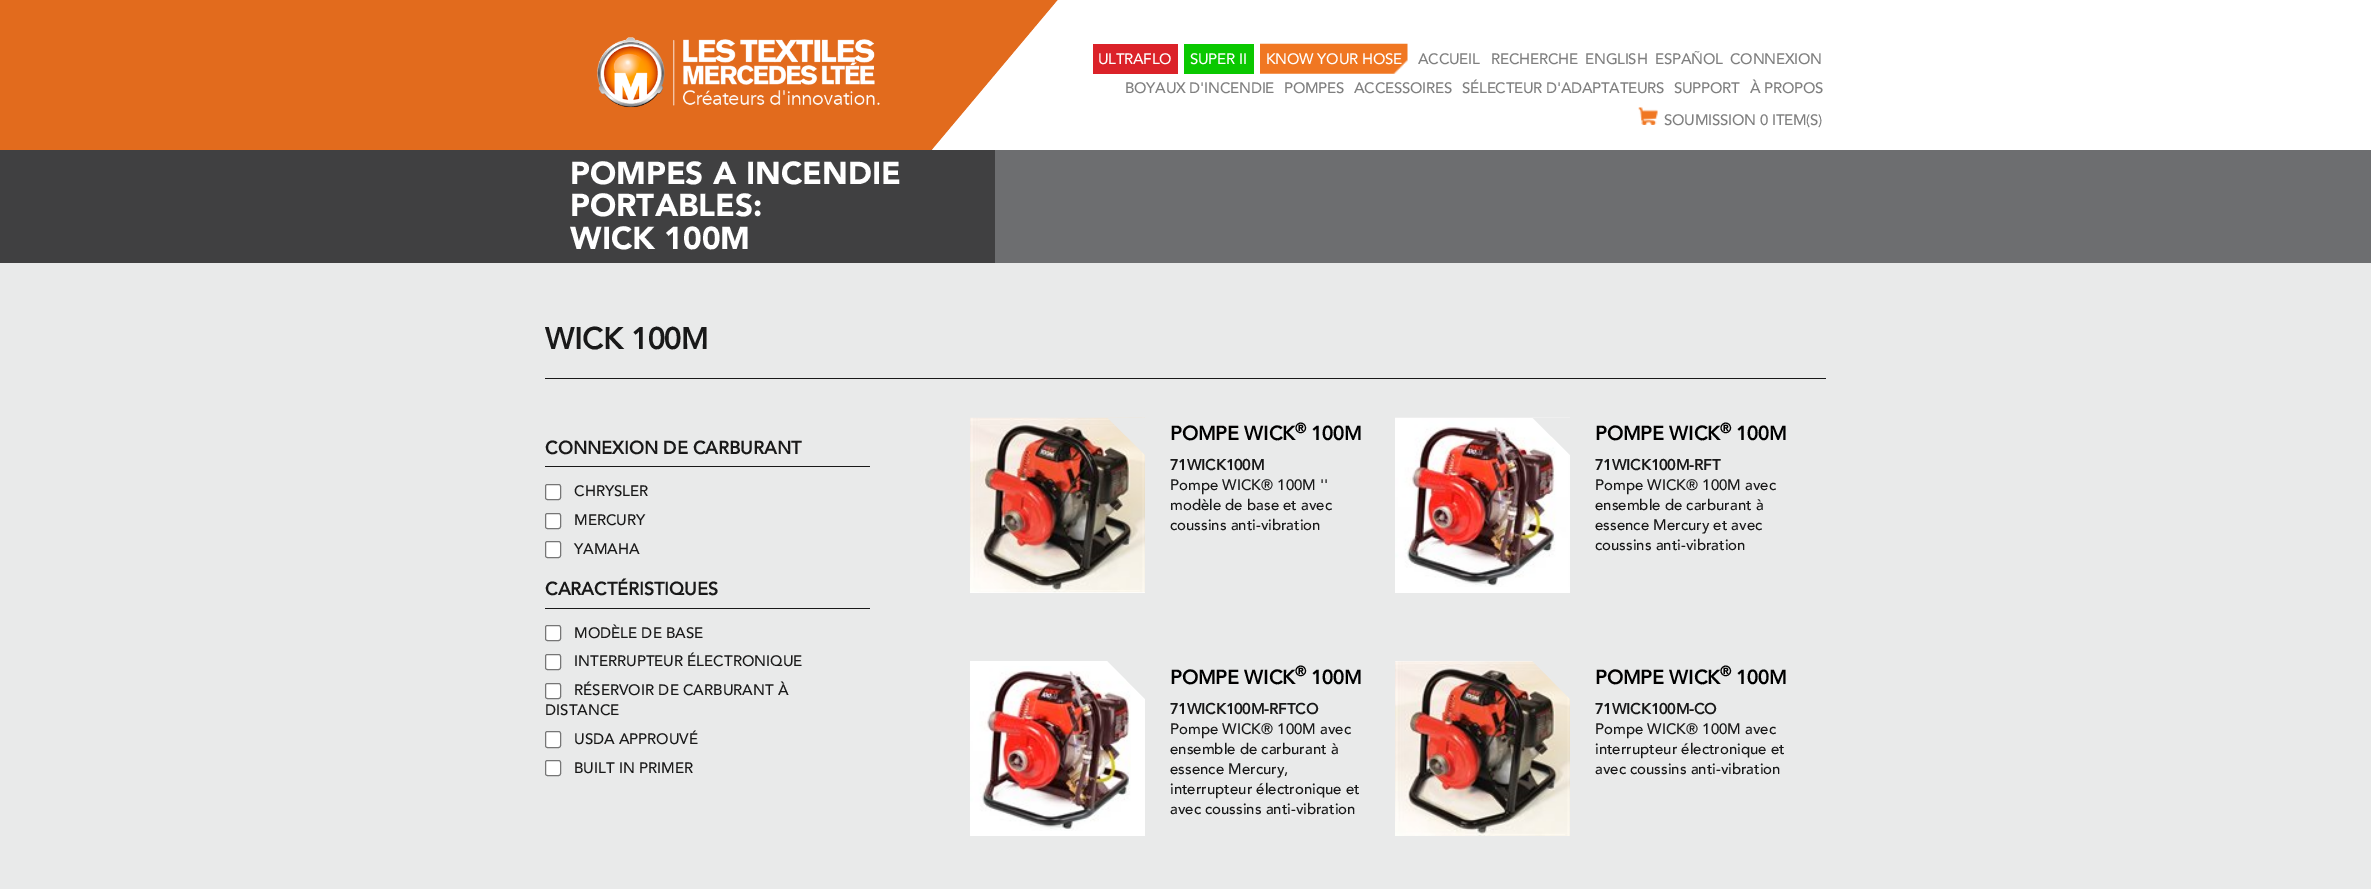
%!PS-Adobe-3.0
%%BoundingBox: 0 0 2371 889
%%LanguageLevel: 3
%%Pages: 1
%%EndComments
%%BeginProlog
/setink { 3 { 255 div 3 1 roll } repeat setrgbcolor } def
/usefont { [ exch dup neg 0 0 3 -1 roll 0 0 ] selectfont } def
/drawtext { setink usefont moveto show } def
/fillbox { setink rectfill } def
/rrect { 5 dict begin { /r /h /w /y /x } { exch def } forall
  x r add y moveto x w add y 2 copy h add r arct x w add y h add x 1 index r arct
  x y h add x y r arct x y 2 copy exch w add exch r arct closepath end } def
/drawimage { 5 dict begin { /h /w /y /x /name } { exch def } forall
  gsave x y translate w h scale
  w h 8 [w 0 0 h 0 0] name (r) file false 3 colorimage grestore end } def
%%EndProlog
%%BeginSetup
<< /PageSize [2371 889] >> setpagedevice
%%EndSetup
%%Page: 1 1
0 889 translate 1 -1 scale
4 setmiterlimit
0 0 2371 889 233 234 234 fillbox
933 0 1438 150 255 255 255 fillbox
0 0 933 150 226 107 29 fillbox
(assets/img1.rgb) 597 37 283 71 drawimage
932 0 moveto 1058 0 lineto 932 150 lineto closepath fill
255 255 255 setink
1058 0 moveto 1058 150 lineto 932 150 lineto closepath fill
1093 44 85 30 219 34 41 fillbox
/Avenir-Medium 15 usefont
255 255 255 setink
1098 64 moveto -0.25 0 (ULTRAFLO) ashow
1184 44 70 30 10 200 0 fillbox
255 255 255 setink
1190 64 moveto -0.25 0 (SUPER II) ashow
(assets/img2.rgb) 1260 43 148 31 drawimage
1266 64 moveto -0.25 0 (KNOW YOUR HOSE) ashow
127 127 127 setink
1418 64 moveto -0.25 0 (ACCUEIL) ashow
1491 64 moveto -0.25 0 (RECHERCHE) ashow
1585 64 moveto -0.25 0 (ENGLISH) ashow
1655 64 moveto -0.25 0 (ESPAÑOL) ashow
1730 64 moveto -0.25 0 (CONNEXION) ashow
1125 93 moveto -0.25 0 (BOYAUX D'INCENDIE) ashow
1284 93 moveto -0.25 0 (POMPES) ashow
1354 93 moveto -0.25 0 (ACCESSOIRES) ashow
1462 93 moveto -0.25 0 (SÉLECTEUR D'ADAPTATEURS) ashow
1674 93 moveto -0.25 0 (SUPPORT) ashow
1750 93 moveto -0.25 0 (À PROPOS) ashow
(assets/img3.rgb) 1638 107 20 18 drawimage
1664 125 moveto -0.25 0 (SOUMISSION 0 ITEM\(S\)) ashow
995 150 1376 113 109 110 112 fillbox
0 150 995 113 64 64 65 fillbox
(POMPES A INCENDIE) 570 184 /Avenir-Black 31.5 255 255 255 drawtext
(PORTABLES:) 570 216 /Avenir-Black 31.5 255 255 255 drawtext
(WICK 100M) 570 249 /Avenir-Black 31.5 255 255 255 drawtext
545 378 1281 1 25 25 25 fillbox
(WICK 100M) 545 349 /Avenir-Bold 30 25 25 25 drawtext
545 466 325 1 25 25 25 fillbox
(CONNEXION DE CARBURANT) 545 454 /Avenir-Bold 18 25 25 25 drawtext
255 255 255 setink
545.5 484.5 15 15 2 rrect gsave fill grestore
118 118 118 setink
stroke
(CHRYSLER) 574 496 /Avenir-Medium 15 25 25 25 drawtext
255 255 255 setink
545.5 513.5 15 15 2 rrect gsave fill grestore
118 118 118 setink
stroke
(MERCURY) 574 525 /Avenir-Medium 15 25 25 25 drawtext
255 255 255 setink
545.5 541.5 15 16 2 rrect gsave fill grestore
118 118 118 setink
stroke
(YAMAHA) 574 554 /Avenir-Medium 15 25 25 25 drawtext
545 608 325 1 25 25 25 fillbox
(CARACTÉRISTIQUES) 545 595 /Avenir-Bold 18 25 25 25 drawtext
255 255 255 setink
545.5 625.5 15 15 2 rrect gsave fill grestore
118 118 118 setink
stroke
(MODÈLE DE BASE) 574 638 /Avenir-Medium 15 25 25 25 drawtext
255 255 255 setink
545.5 654.5 15 15 2 rrect gsave fill grestore
118 118 118 setink
stroke
(INTERRUPTEUR ÉLECTRONIQUE) 574 666 /Avenir-Medium 15 25 25 25 drawtext
255 255 255 setink
545.5 683.5 15 15 2 rrect gsave fill grestore
118 118 118 setink
stroke
(RÉSERVOIR DE CARBURANT À) 574 695 /Avenir-Medium 15 25 25 25 drawtext
(DISTANCE) 545 715 /Avenir-Medium 15 25 25 25 drawtext
255 255 255 setink
545.5 731.5 15 16 2 rrect gsave fill grestore
118 118 118 setink
stroke
(USDA APPROUVÉ) 574 744 /Avenir-Medium 15 25 25 25 drawtext
255 255 255 setink
545.5 760.5 15 15 2 rrect gsave fill grestore
118 118 118 setink
stroke
(BUILT IN PRIMER) 574 773 /Avenir-Medium 15 25 25 25 drawtext
970 592 175 1 255 255 255 fillbox
(assets/img4.rgb) 970 417 175 176 drawimage
gsave
970 418 175 175 rectclip
233 234 234 setink
1107.5 417.5 moveto 1145 417.5 lineto 1145 455 lineto closepath fill
grestore
(POMPE WICK) 1170 440 /Avenir-Bold 19.5 0 0 0 drawtext
(®) 1295 433 /Avenir-Bold 14 0 0 0 drawtext
(100M) 1311 440 /Avenir-Bold 19.5 0 0 0 drawtext
(71WICK100M) 1170 470 /Avenir-Bold 15 25 25 25 drawtext
(Pompe WICK® 100M '') 1170 490 /Avenir-Medium 15 25 25 25 drawtext
(modèle de base et avec) 1170 510 /Avenir-Medium 15 25 25 25 drawtext
(coussins anti-vibration) 1170 530 /Avenir-Medium 15 25 25 25 drawtext
1395 587 175 6 255 255 255 fillbox
(assets/img5.rgb) 1395 417 175 170 drawimage
gsave
1395 418 175 175 rectclip
233 234 234 setink
1532.5 417.5 moveto 1570 417.5 lineto 1570 455 lineto closepath fill
grestore
(POMPE WICK) 1595 440 /Avenir-Bold 19.5 0 0 0 drawtext
(®) 1720 433 /Avenir-Bold 14 0 0 0 drawtext
(100M) 1736 440 /Avenir-Bold 19.5 0 0 0 drawtext
(71WICK100M-RFT) 1595 470 /Avenir-Bold 15 25 25 25 drawtext
(Pompe WICK® 100M avec) 1595 490 /Avenir-Medium 15 25 25 25 drawtext
(ensemble de carburant à) 1595 510 /Avenir-Medium 15 25 25 25 drawtext
(essence Mercury et avec) 1595 530 /Avenir-Medium 15 25 25 25 drawtext
(coussins anti-vibration) 1595 550 /Avenir-Medium 15 25 25 25 drawtext
970 661 175 175 255 255 255 fillbox
(assets/img6.rgb) 970 666 161 165 drawimage
233 234 234 setink
1107.5 661 moveto 1145 661 lineto 1145 699 lineto closepath fill
(POMPE WICK) 1170 684 /Avenir-Bold 19.5 0 0 0 drawtext
(®) 1295 676 /Avenir-Bold 14 0 0 0 drawtext
(100M) 1311 684 /Avenir-Bold 19.5 0 0 0 drawtext
(71WICK100M-RFTCO) 1170 714 /Avenir-Bold 15 25 25 25 drawtext
(Pompe WICK® 100M avec) 1170 734 /Avenir-Medium 15 25 25 25 drawtext
(ensemble de carburant à) 1170 754 /Avenir-Medium 15 25 25 25 drawtext
(essence Mercury,) 1170 774 /Avenir-Medium 15 25 25 25 drawtext
(interrupteur électronique et) 1170 794 /Avenir-Medium 15 25 25 25 drawtext
(avec coussins anti-vibration) 1170 814 /Avenir-Medium 15 25 25 25 drawtext
1395 661 139 1 255 255 255 fillbox
(assets/img7.rgb) 1395 661 175 175 drawimage
233 234 234 setink
1532.5 661 moveto 1570 661 lineto 1570 699 lineto closepath fill
(POMPE WICK) 1595 684 /Avenir-Bold 19.5 0 0 0 drawtext
(®) 1720 676 /Avenir-Bold 14 0 0 0 drawtext
(100M) 1736 684 /Avenir-Bold 19.5 0 0 0 drawtext
(71WICK100M-CO) 1595 714 /Avenir-Bold 15 25 25 25 drawtext
(Pompe WICK® 100M avec) 1595 734 /Avenir-Medium 15 25 25 25 drawtext
(interrupteur électronique et) 1595 754 /Avenir-Medium 15 25 25 25 drawtext
(avec coussins anti-vibration) 1595 774 /Avenir-Medium 15 25 25 25 drawtext
showpage
%%EOF
